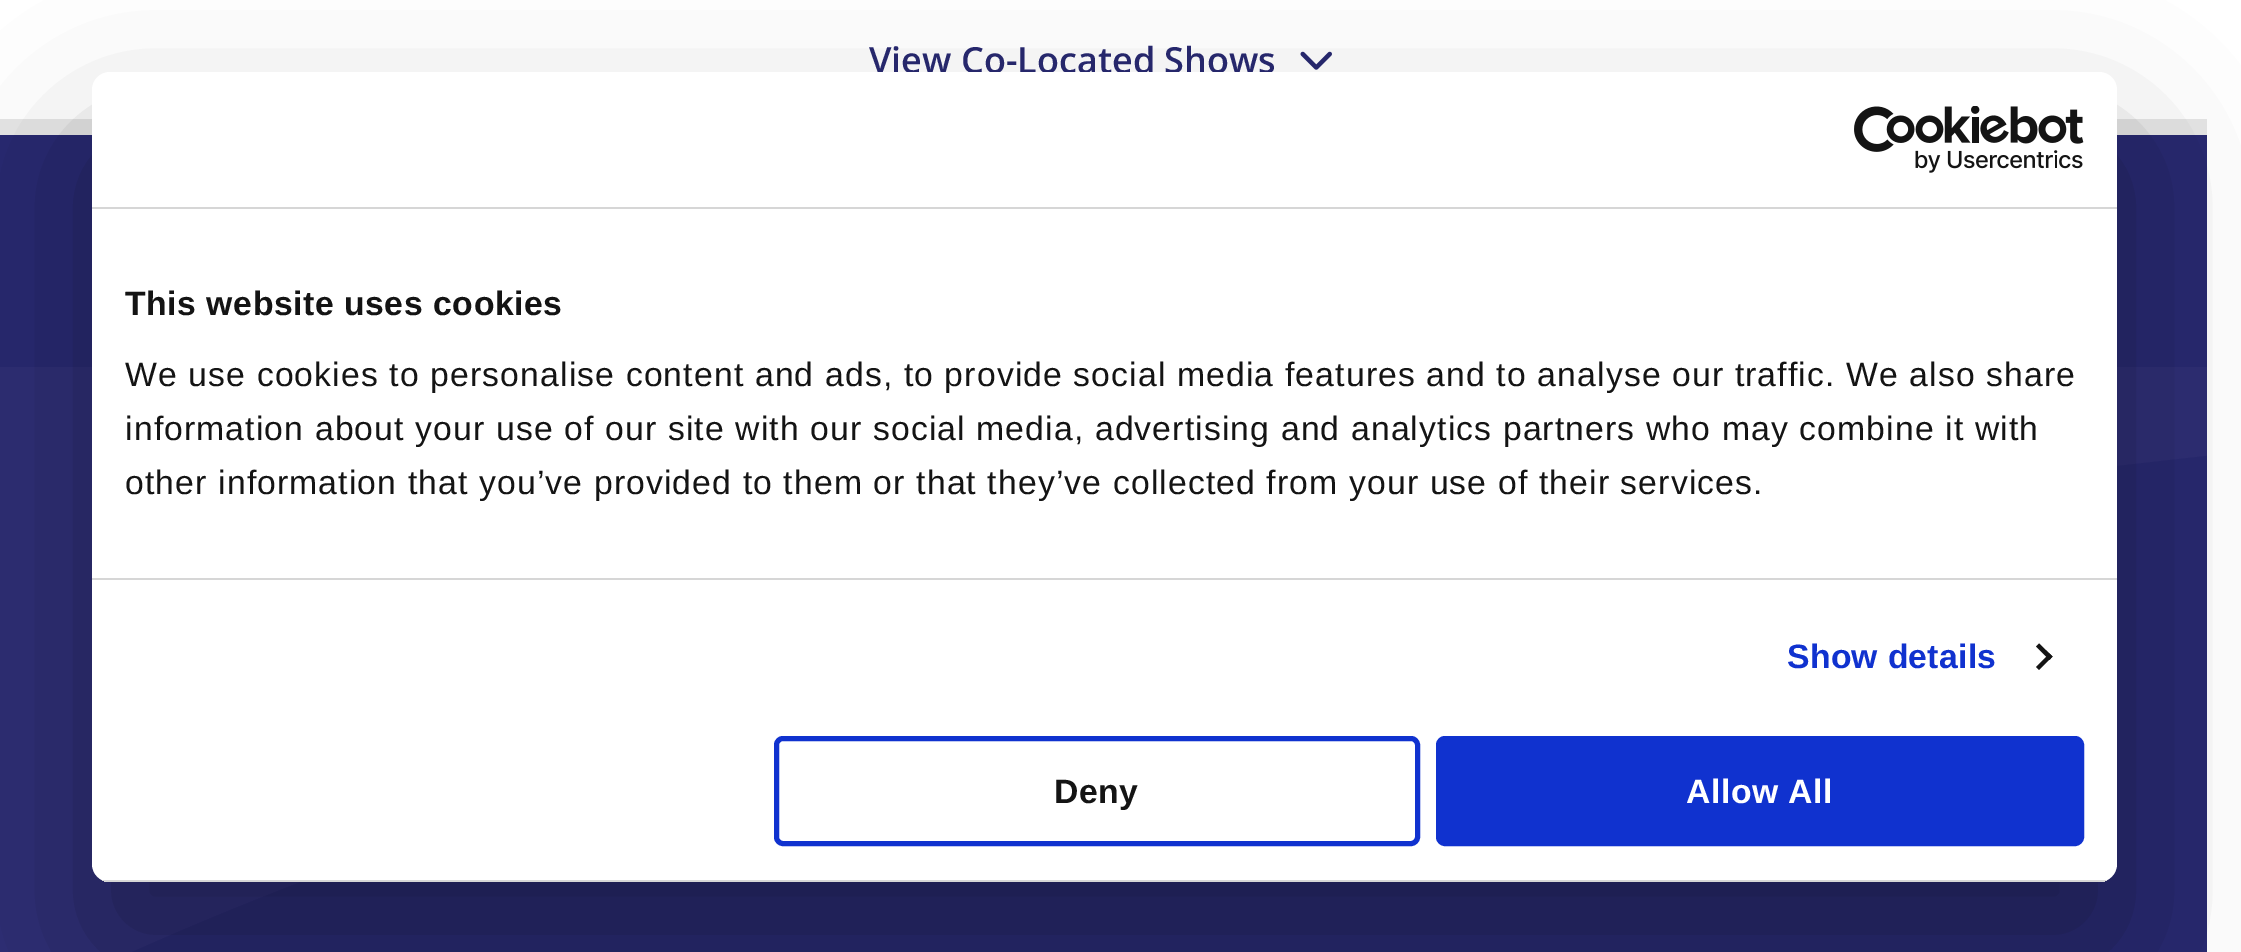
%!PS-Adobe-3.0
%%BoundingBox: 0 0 2241 952
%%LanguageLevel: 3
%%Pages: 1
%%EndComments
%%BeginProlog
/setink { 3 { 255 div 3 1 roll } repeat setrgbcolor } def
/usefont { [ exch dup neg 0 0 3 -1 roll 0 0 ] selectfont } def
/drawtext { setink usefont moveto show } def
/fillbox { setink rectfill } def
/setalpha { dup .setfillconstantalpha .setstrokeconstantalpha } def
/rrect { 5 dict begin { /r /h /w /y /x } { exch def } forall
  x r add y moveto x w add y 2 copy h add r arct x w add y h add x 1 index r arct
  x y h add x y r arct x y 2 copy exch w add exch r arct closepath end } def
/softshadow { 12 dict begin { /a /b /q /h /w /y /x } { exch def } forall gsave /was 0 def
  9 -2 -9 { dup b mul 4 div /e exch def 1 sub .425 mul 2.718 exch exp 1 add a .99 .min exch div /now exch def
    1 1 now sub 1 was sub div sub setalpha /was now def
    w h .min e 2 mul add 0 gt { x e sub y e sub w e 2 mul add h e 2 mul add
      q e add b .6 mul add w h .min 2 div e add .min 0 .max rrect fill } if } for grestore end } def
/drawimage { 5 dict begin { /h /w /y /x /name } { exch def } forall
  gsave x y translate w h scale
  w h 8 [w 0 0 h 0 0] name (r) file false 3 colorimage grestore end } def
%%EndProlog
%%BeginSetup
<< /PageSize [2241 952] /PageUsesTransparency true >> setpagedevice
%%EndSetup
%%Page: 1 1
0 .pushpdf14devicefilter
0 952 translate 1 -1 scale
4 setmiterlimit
0 0 2241 952 255 255 255 fillbox
0 119 2207 16 230 230 230 fillbox
(View Co-Located Shows) 869 73 /OpenSans-SemiBold 36 39 40 112 drawtext
(assets/img1.rgb) 1300 51 32 19 drawimage
0 135 2207 232 39 40 112 fillbox
131 455 2076 497 39 40 112 fillbox
gsave
0 367 2207 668 rectclip
46 46 116 setink
0 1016 moveto 0 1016 1237 312 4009 390 curveto 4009 367 lineto 0 367 lineto closepath fill
grestore
0 0 0 setink
92 144 2025 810 18 76.5 0.3 softshadow
255 255 255 setink
92 72 2025 810 18 rrect fill
92 207 2025 2 214 214 214 fillbox
(assets/img2.rgb) 1854 106 230 67 drawimage
92 578 2025 2 214 214 214 fillbox
/LiberationSans-Bold 33.75 usefont
20 20 20 setink
125 315 moveto 0.55 0 (This website uses cookies) ashow
/LiberationSans-Regular 33.75 usefont
125 386 moveto 1.12 0 (We use cookies to personalise content and ads, to provide social media features and to analyse our traffic. We also share) ashow
125 440 moveto 1.12 0 (information about your use of our site with our social media, advertising and analytics partners who may combine it with) ashow
125 494 moveto 1.12 0 (other information that you’ve provided to them or that they’ve collected from your use of their services.) ashow
/LiberationSans-Bold 33.75 usefont
16 50 207 setink
1787 668 moveto 0.25 0 (Show details) ashow
20 20 20 setink
2039 643.5 moveto 2052.5 656.5 lineto 2049.5 660 lineto 2036 646.5 lineto closepath fill
2049.5 653.5 moveto 2052.5 656.5 lineto 2039 670 lineto 2036 667 lineto closepath fill
gsave
92 72 2025 810 18 rrect clip newpath
102 880 2005 2 214 214 214 fillbox
grestore
16 50 207 setink
5 setlinewidth
776.5 738.5 641 105 6.5 rrect stroke
20 20 20 setink
1054 803 moveto 0.5 0 (Deny) ashow
16 50 207 setink
1438.5 738.5 643 105 6.5 rrect gsave fill grestore
stroke
255 255 255 setink
1686 803 moveto 0.5 0 (Allow All) ashow
.poppdf14devicefilter showpage
%%EOF
